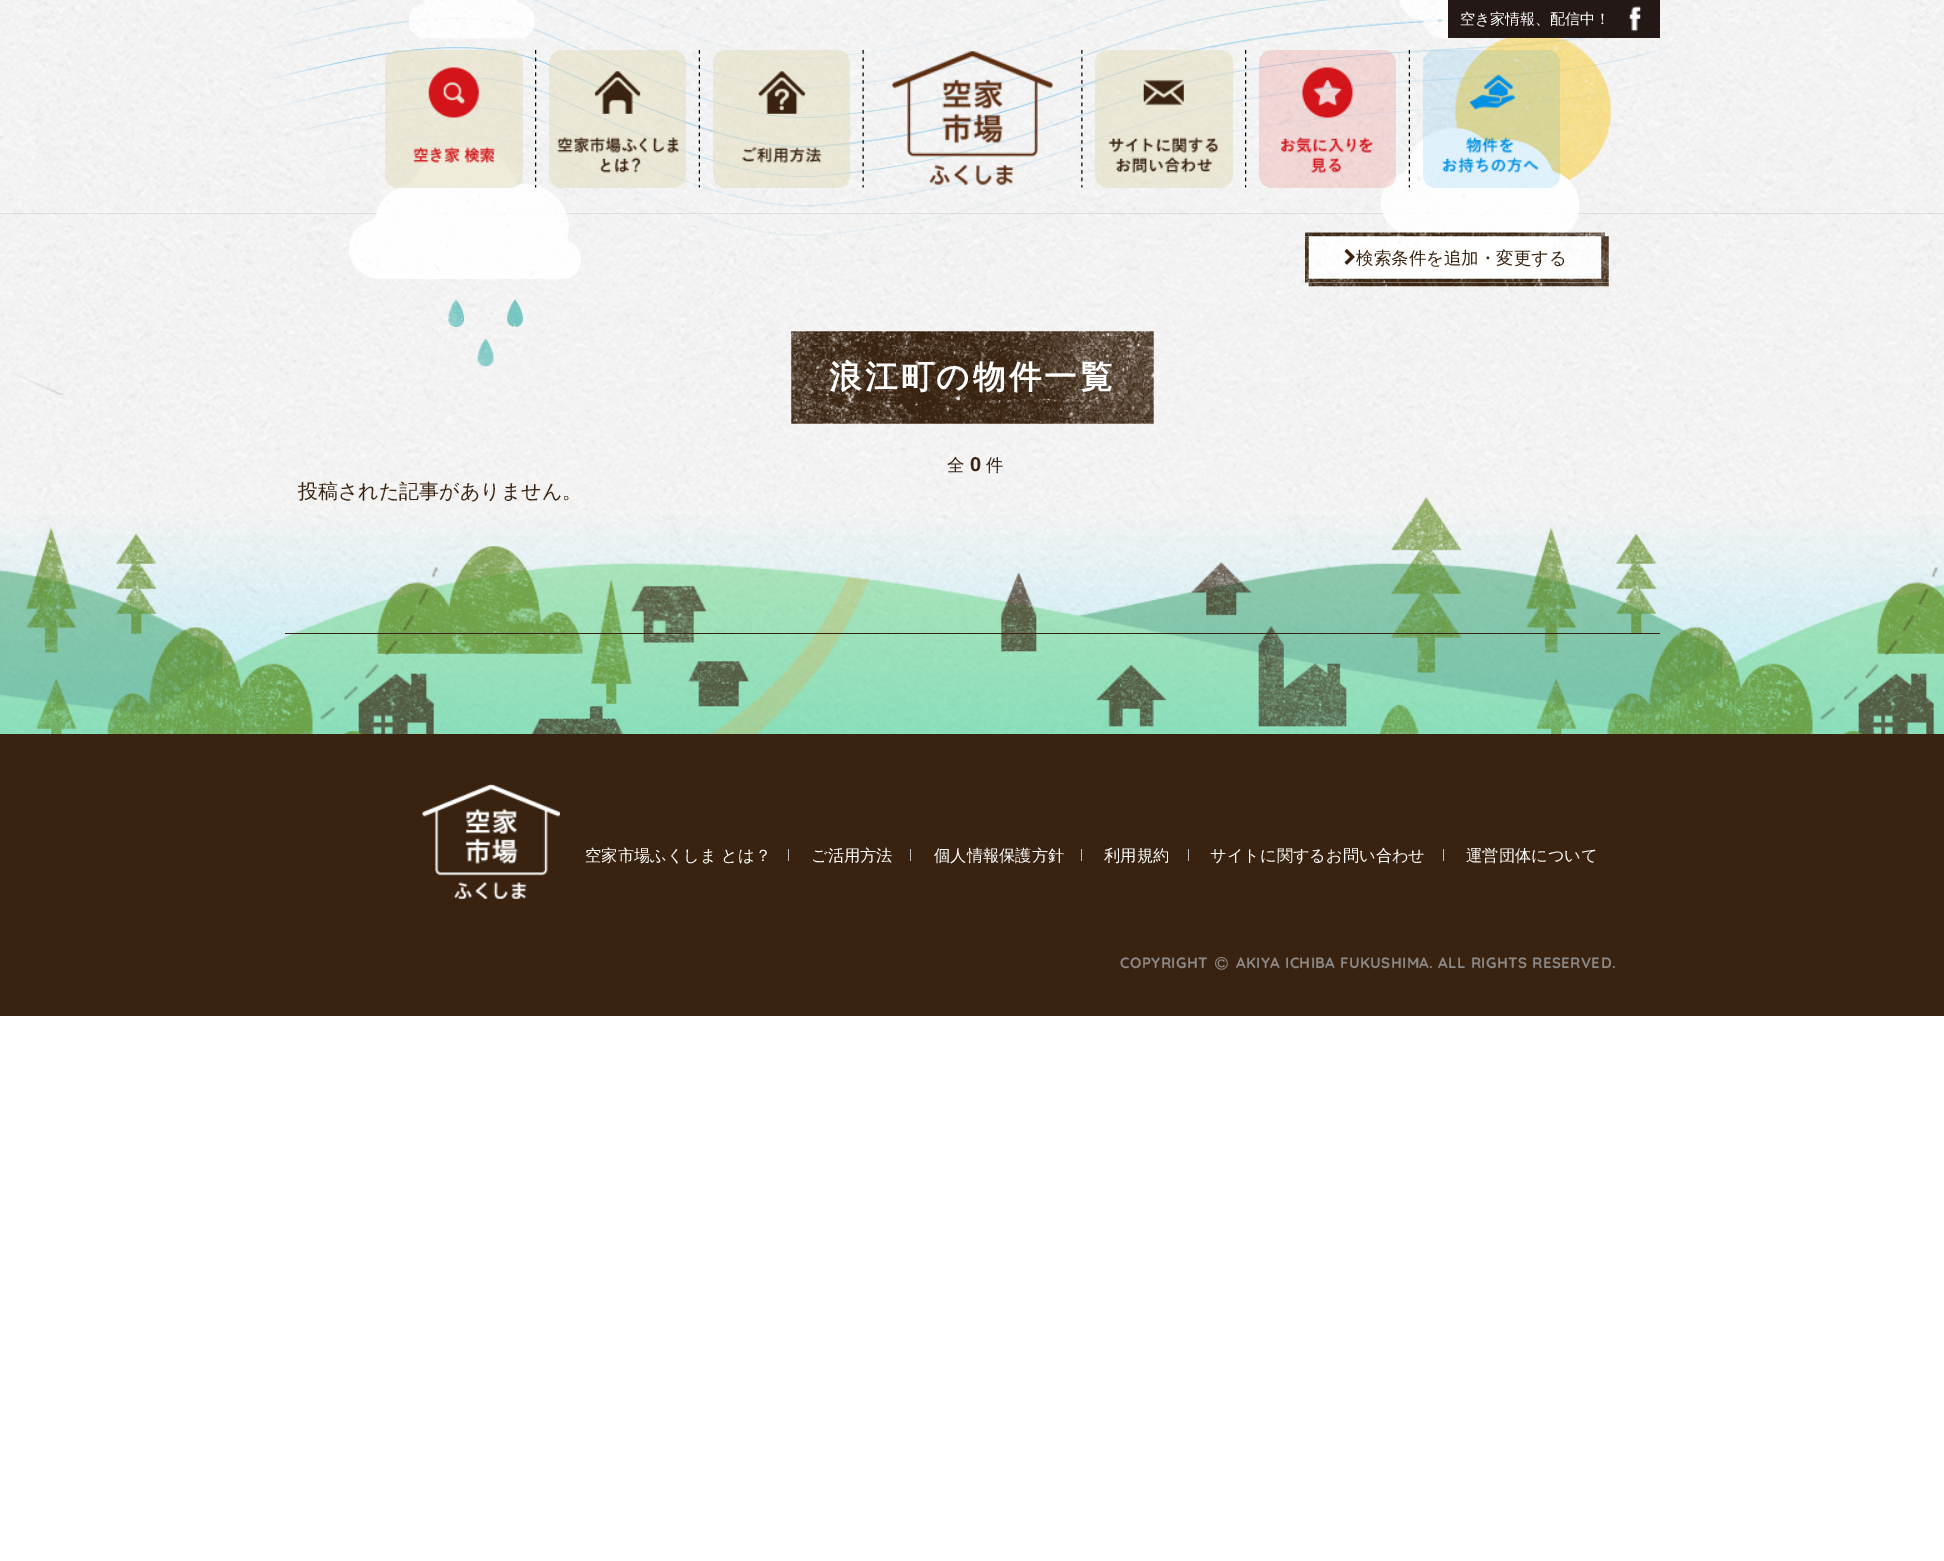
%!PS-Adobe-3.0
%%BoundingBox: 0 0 1944 1561
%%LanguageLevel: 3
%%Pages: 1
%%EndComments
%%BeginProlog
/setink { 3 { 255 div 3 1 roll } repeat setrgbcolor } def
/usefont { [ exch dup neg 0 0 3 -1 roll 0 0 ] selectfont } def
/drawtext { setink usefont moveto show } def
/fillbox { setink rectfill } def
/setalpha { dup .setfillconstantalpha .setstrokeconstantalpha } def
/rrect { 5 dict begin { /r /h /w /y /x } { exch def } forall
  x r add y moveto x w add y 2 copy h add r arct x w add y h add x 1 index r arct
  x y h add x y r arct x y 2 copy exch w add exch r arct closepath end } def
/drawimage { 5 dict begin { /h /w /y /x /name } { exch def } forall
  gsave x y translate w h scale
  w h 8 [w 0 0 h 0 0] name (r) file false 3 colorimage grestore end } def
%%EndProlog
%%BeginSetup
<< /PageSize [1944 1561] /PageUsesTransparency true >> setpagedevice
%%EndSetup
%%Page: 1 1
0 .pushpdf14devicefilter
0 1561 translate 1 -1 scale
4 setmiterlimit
0 0 1944 1561 255 255 255 fillbox
(assets/img1.rgb) 0 0 1944 734 drawimage
0.1 setalpha
0 213 1944 1 57 35 16 fillbox
1 setalpha
(assets/img16.rgb) 259 0 1432 367 drawimage
1448 0 212 38 35 24 21 fillbox
(空き家情報、配信中！) 1460 24 /WenQuanYiZenHei-Medium 15 255 255 255 drawtext
(assets/img2.rgb) 1628 6 14 26 drawimage
0.5 setalpha
227 219 185 setink
385 50 138 138 13 rrect fill
1 setalpha
(assets/img3.rgb) 413 67 82 96 drawimage
(assets/img4.rgb) 535 50 2 138 drawimage
0.5 setalpha
549 50 137 138 13 rrect fill
1 setalpha
(assets/img5.rgb) 557 71 122 102 drawimage
(assets/img6.rgb) 698 50 2 138 drawimage
0.5 setalpha
713 50 137 138 13 rrect fill
1 setalpha
(assets/img7.rgb) 742 71 80 92 drawimage
(assets/img8.rgb) 862 50 2 138 drawimage
(assets/img9.rgb) 892 51 161 135 drawimage
(assets/img10.rgb) 1081 50 2 138 drawimage
0.5 setalpha
1095 50 138 138 13 rrect fill
1 setalpha
(assets/img11.rgb) 1108 79 110 94 drawimage
(assets/img12.rgb) 1245 50 2 138 drawimage
0.12 setalpha
227 0 0 setink
1259 50 137 138 13 rrect fill
1 setalpha
(assets/img13.rgb) 1281 67 92 106 drawimage
(assets/img14.rgb) 1408 50 2 138 drawimage
0.12 setalpha
0 144 227 setink
1423 50 137 138 13 rrect fill
1 setalpha
(assets/img15.rgb) 1442 74 97 99 drawimage
(assets/img17.rgb) 0 497 1944 237 drawimage
(assets/img18.rgb) 1308 236 301 51 drawimage
(assets/img19.rgb) 1305 232 300 51 drawimage
(assets/img20.rgb) 1305 232 300 51 drawimage
(assets/img21.rgb) 1344 249 11 16 drawimage
(検索条件を追加・変更する) 1356 264 /WenQuanYiZenHei-Medium 17.5 57 35 16 drawtext
(assets/img22.rgb) 791 331 363 93 drawimage
/WenQuanYiZenHei-Bold 32.5 usefont
255 255 255 setink
829 388 moveto 3.25 0 (浪江町の物件一覧) ashow
(全) 947 471 /WenQuanYiZenHei-Medium 17.5 57 35 16 drawtext
(0) 970 471 /LiberationSans-Bold 20 57 35 16 drawtext
(件) 986 471 /WenQuanYiZenHei-Medium 17.5 57 35 16 drawtext
(assets/img23.rgb) 13 373 51 22 drawimage
(投稿された記事がありません。) 298 498 /WenQuanYiZenHei-Medium 20 57 35 16 drawtext
285 633 1375 1 57 35 16 fillbox
0 734 1944 282 57 35 16 fillbox
(assets/img24.rgb) 422 784 138 116 drawimage
788 849 1 12 191 191 191 fillbox
(空家市場ふくしま とは？) 585 861 /WenQuanYiZenHei-Medium 16.25 255 255 255 drawtext
910 849 1 12 191 191 191 fillbox
(ご活用方法) 811 861 /WenQuanYiZenHei-Medium 16.25 255 255 255 drawtext
1081 849 1 12 191 191 191 fillbox
(個人情報保護方針) 934 861 /WenQuanYiZenHei-Medium 16.25 255 255 255 drawtext
1188 849 1 12 191 191 191 fillbox
(利用規約) 1104 861 /WenQuanYiZenHei-Medium 16.25 255 255 255 drawtext
1443 849 1 12 191 191 191 fillbox
(サイトに関するお問い合わせ) 1210 861 /WenQuanYiZenHei-Medium 16.25 255 255 255 drawtext
(運営団体について) 1466 861 /WenQuanYiZenHei-Medium 16.25 255 255 255 drawtext
/Quicksand-Bold 15 usefont
140 137 137 setink
1120 968 moveto 0.45 0 (COPYRIGHT) ashow
(assets/img25.rgb) 1215 957 13 13 drawimage
1236 968 moveto 0.45 0 (AKIYA ICHIBA FUKUSHIMA. ALL RIGHTS RESERVED.) ashow
.poppdf14devicefilter showpage
%%EOF
